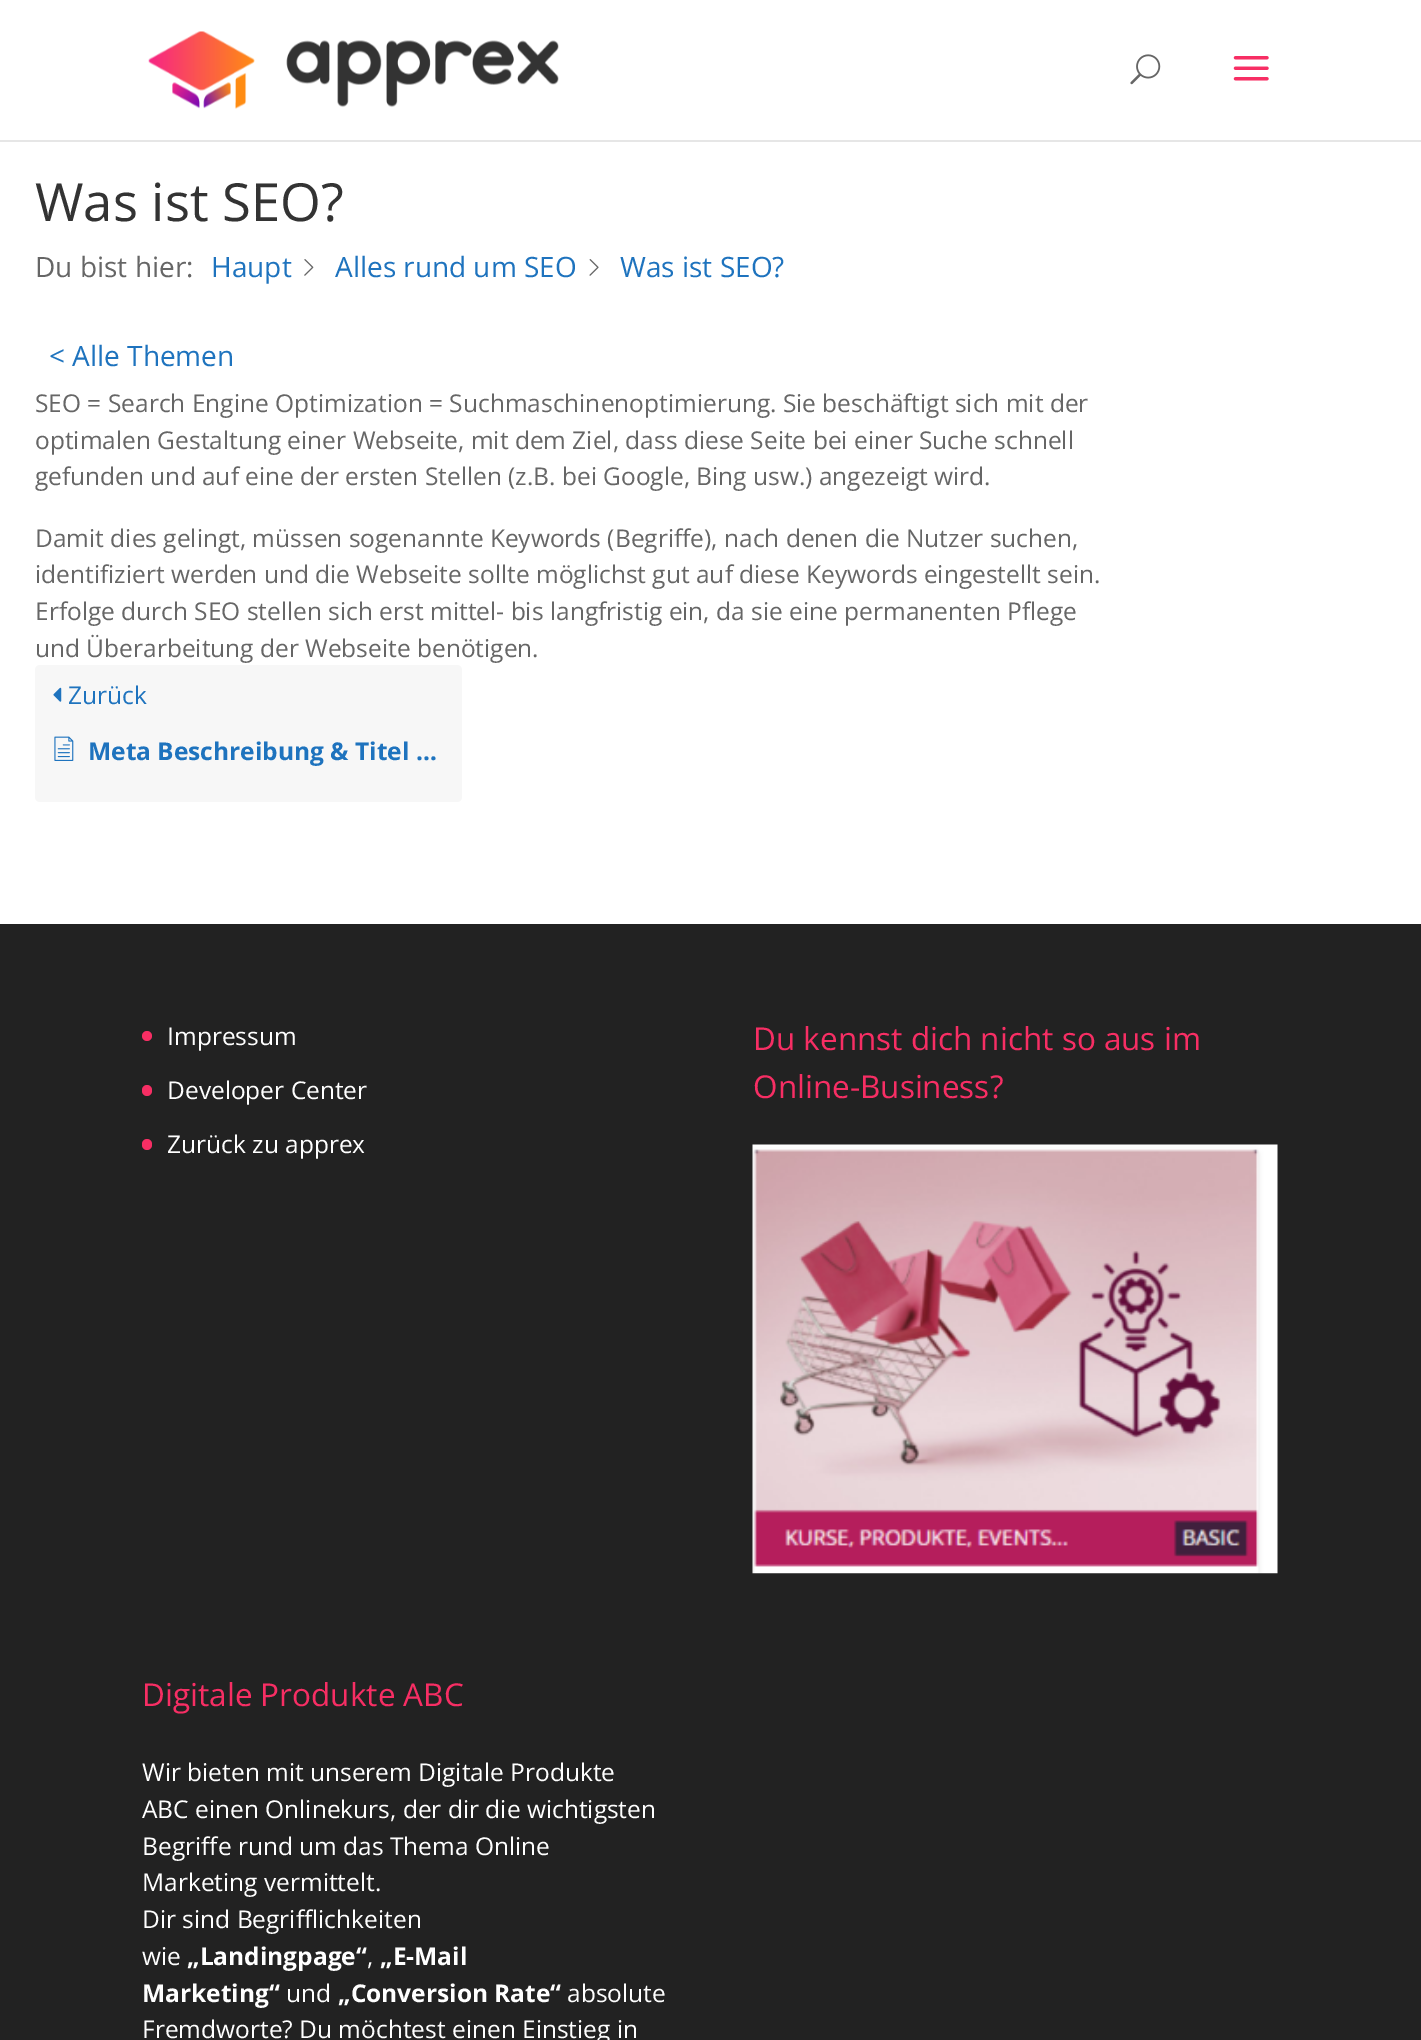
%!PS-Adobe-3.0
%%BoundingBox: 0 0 1421 2040
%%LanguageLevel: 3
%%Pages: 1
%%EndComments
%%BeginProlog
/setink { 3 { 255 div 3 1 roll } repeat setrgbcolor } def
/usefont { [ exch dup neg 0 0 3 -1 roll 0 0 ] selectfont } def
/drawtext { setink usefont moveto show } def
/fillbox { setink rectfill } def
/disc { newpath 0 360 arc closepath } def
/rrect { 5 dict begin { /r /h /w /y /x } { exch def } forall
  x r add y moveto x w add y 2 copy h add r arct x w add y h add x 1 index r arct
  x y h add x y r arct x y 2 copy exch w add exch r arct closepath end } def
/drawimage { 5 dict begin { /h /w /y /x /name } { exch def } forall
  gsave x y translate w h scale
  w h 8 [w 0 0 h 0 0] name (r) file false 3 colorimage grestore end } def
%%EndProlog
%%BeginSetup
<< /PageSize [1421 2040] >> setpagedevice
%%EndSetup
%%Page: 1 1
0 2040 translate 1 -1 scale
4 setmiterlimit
0 0 1421 2040 255 255 255 fillbox
0 140 1421 2 230 230 230 fillbox
(assets/img1.rgb) 148 31 411 78 drawimage
(assets/img2.rgb) 1130 54 31 31 drawimage
(assets/img3.rgb) 1233 56 36 25 drawimage
(Was ist SEO?) 35 221 /OpenSans-Regular 52.5 51 51 51 drawtext
(Du bist hier:) 35 277 /OpenSans-Regular 28 102 102 102 drawtext
(Haupt) 211 277 /OpenSans-Regular 28 30 115 190 drawtext
(assets/img4.rgb) 304 259 10 17 drawimage
(Alles rund um SEO) 335 277 /OpenSans-Regular 28 30 115 190 drawtext
(assets/img5.rgb) 589 259 10 17 drawimage
(Was ist SEO?) 620 277 /OpenSans-Regular 28 30 115 190 drawtext
(< Alle Themen) 49 366 /OpenSans-Regular 28 30 115 190 drawtext
(SEO = Search Engine Optimization = Suchmaschinenoptimierung. Sie beschäftigt sich mit der) 35 412 /OpenSans-Regular 24.5 102 102 102 drawtext
(optimalen Gestaltung einer Webseite, mit dem Ziel, dass diese Seite bei einer Suche schnell) 35 449 /OpenSans-Regular 24.5 102 102 102 drawtext
(gefunden und auf eine der ersten Stellen \(z.B. bei Google, Bing usw.\) angezeigt wird.) 35 485 /OpenSans-Regular 24.5 102 102 102 drawtext
(Damit dies gelingt, müssen sogenannte Keywords \(Begriffe\), nach denen die Nutzer suchen,) 35 547 /OpenSans-Regular 24.5 102 102 102 drawtext
(identifiziert werden und die Webseite sollte möglichst gut auf diese Keywords eingestellt sein.) 35 583 /OpenSans-Regular 24.5 102 102 102 drawtext
(Erfolge durch SEO stellen sich erst mittel- bis langfristig ein, da sie eine permanenten Pflege) 35 620 /OpenSans-Regular 24.5 102 102 102 drawtext
(und Überarbeitung der Webseite benötigen.) 35 657 /OpenSans-Regular 24.5 102 102 102 drawtext
247 247 247 setink
35 665 427 137 5 rrect fill
(assets/img6.rgb) 53 687 9 15 drawimage
(Zurück) 68 704 /OpenSans-Regular 24.5 30 115 190 drawtext
(assets/img7.rgb) 54 736 20 25 drawimage
(Meta Beschreibung & Titel …) 88 760 /OpenSans-Bold 24.5 30 115 190 drawtext
0 924 1421 1116 34 34 34 fillbox
247 46 100 setink
147 1036 5 disc fill
(Impressum) 167 1045 /OpenSans-Regular 24.5 255 255 255 drawtext
247 46 100 setink
142 1085 10 11 5 rrect fill
(Developer Center) 167 1099 /OpenSans-Regular 24.5 255 255 255 drawtext
247 46 100 setink
142 1139 10 11 5 rrect fill
(Zurück zu apprex) 167 1153 /OpenSans-Regular 24.5 255 255 255 drawtext
(Du kennst dich nicht so aus im) 753 1050 /OpenSans-Regular 31.5 247 46 100 drawtext
(Online-Business?) 753 1098 /OpenSans-Regular 31.5 247 46 100 drawtext
(assets/img8.rgb) 752 1144 526 430 drawimage
(Digitale Produkte ABC) 142 1706 /OpenSans-Regular 31.5 247 46 100 drawtext
(Wir bieten mit unserem Digitale Produkte) 142 1781 /OpenSans-Regular 24.5 255 255 255 drawtext
(ABC einen Onlinekurs, der dir die wichtigsten) 142 1818 /OpenSans-Regular 24.5 255 255 255 drawtext
(Begriffe rund um das Thema Online) 142 1855 /OpenSans-Regular 24.5 255 255 255 drawtext
(Marketing vermittelt.) 142 1891 /OpenSans-Regular 24.5 255 255 255 drawtext
(Dir sind Begrifflichkeiten) 142 1928 /OpenSans-Regular 24.5 255 255 255 drawtext
(wie) 142 1965 /OpenSans-Regular 24.5 255 255 255 drawtext
(„Landingpage“) 187 1965 /OpenSans-Bold 24.5 255 255 255 drawtext
(,) 367 1965 /OpenSans-Regular 24.5 255 255 255 drawtext
(„E-Mail) 380 1965 /OpenSans-Bold 24.5 255 255 255 drawtext
(Marketing“) 142 2002 /OpenSans-Bold 24.5 255 255 255 drawtext
(und) 286 2002 /OpenSans-Regular 24.5 255 255 255 drawtext
(„Conversion Rate“) 338 2002 /OpenSans-Bold 24.5 255 255 255 drawtext
(absolute) 567 2002 /OpenSans-Regular 24.5 255 255 255 drawtext
(Fremdworte? Du möchtest einen Einstieg in) 142 2038 /OpenSans-Regular 24.5 255 255 255 drawtext
showpage
%%EOF
